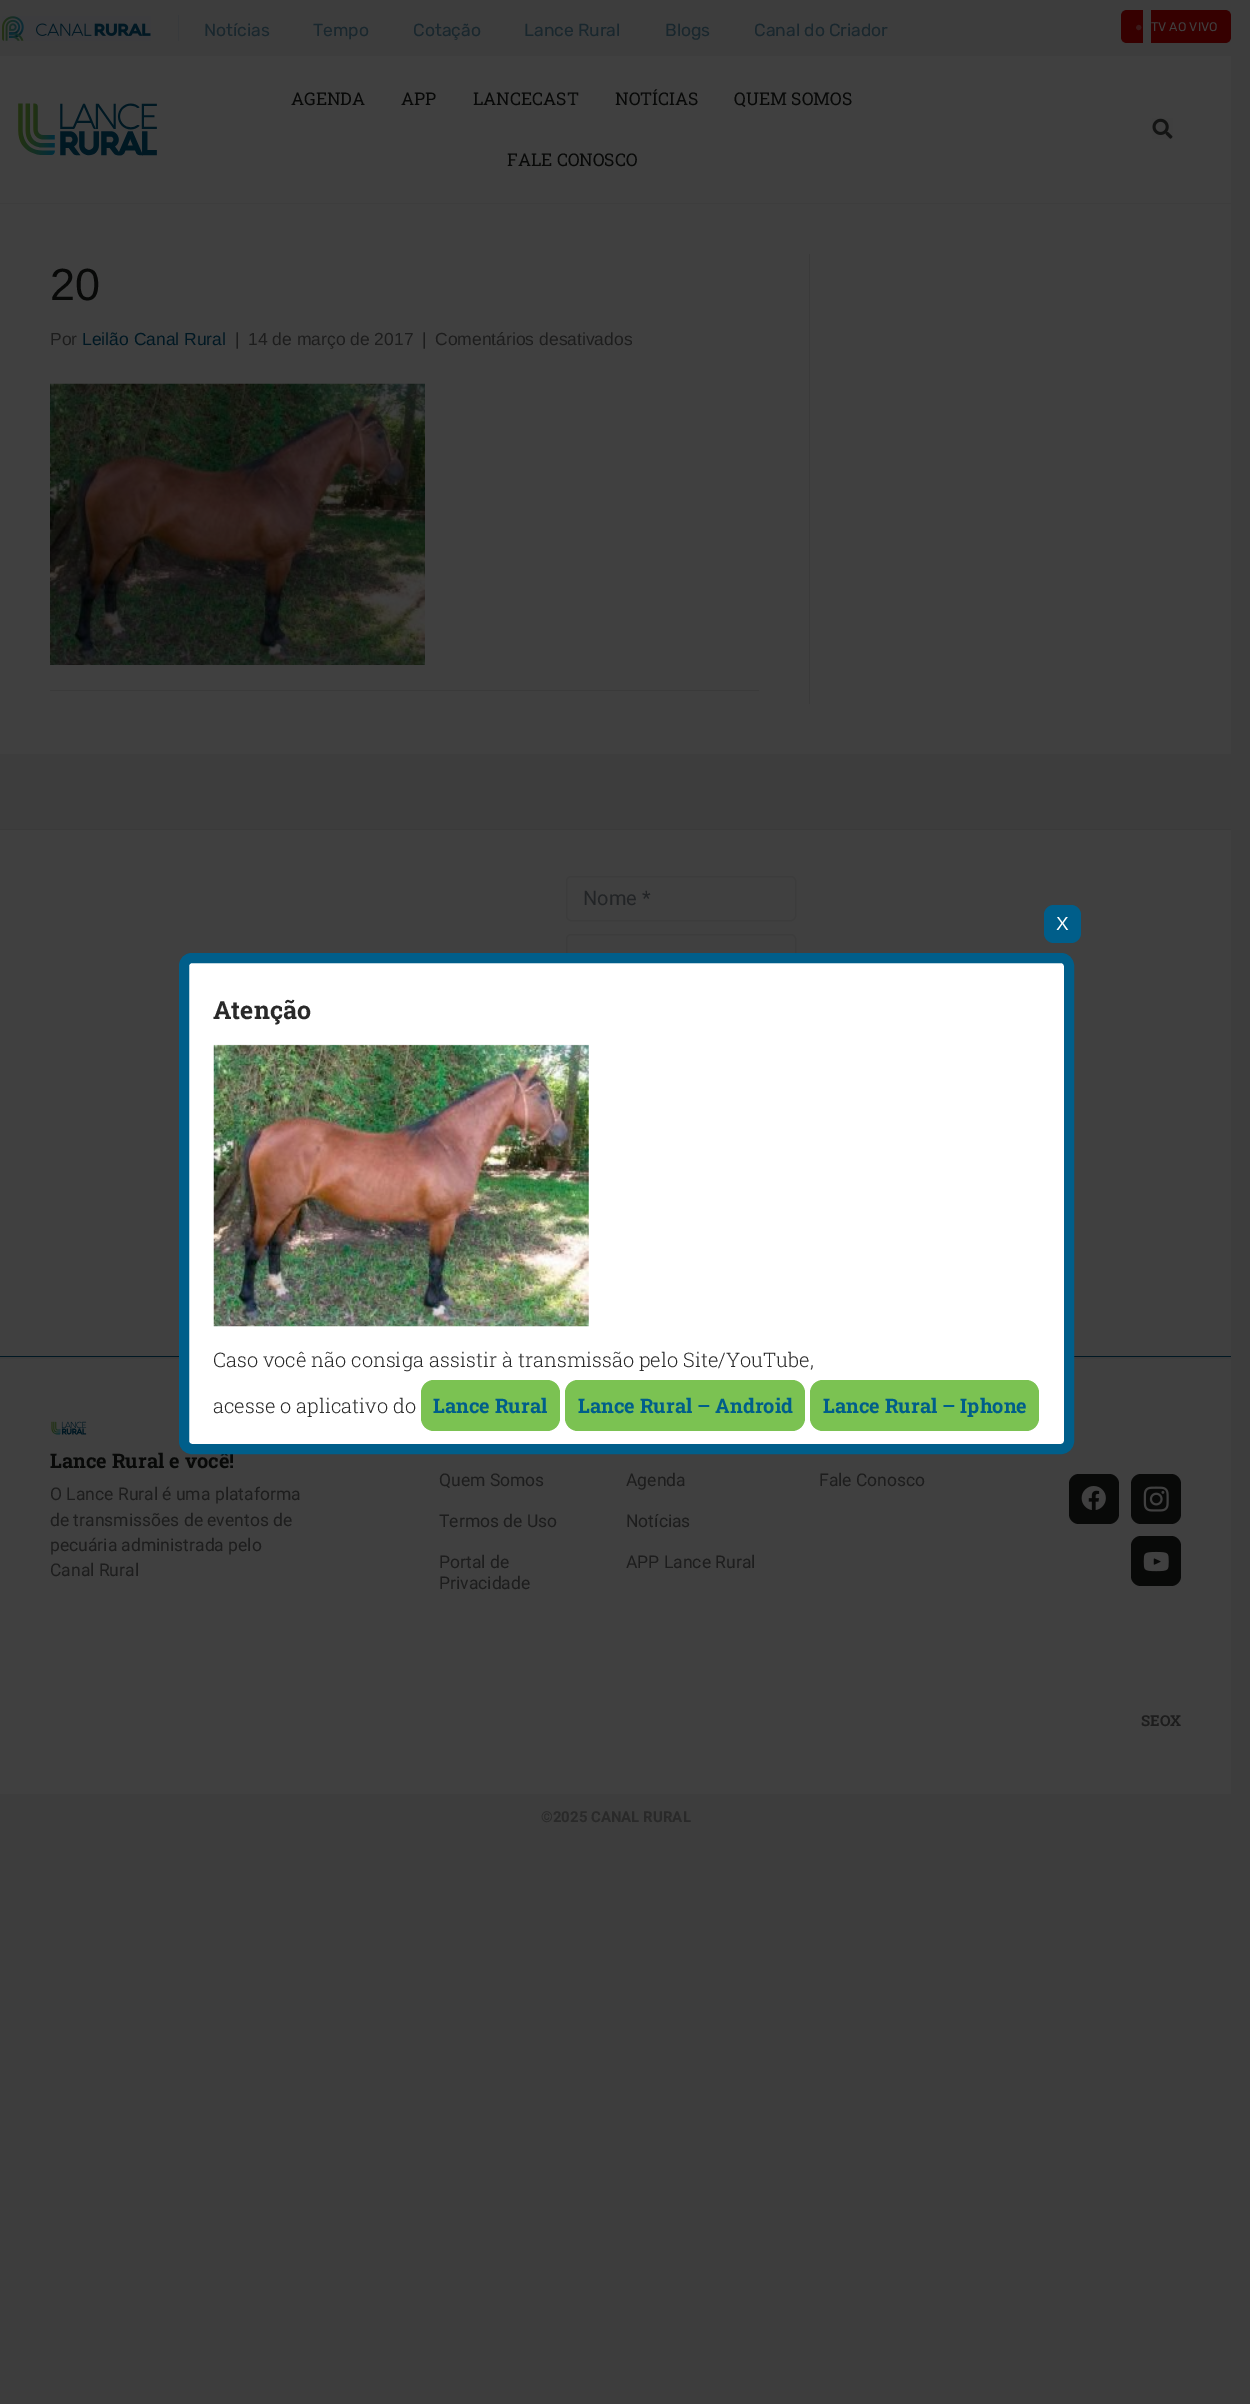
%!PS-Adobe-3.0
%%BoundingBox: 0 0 1250 2404
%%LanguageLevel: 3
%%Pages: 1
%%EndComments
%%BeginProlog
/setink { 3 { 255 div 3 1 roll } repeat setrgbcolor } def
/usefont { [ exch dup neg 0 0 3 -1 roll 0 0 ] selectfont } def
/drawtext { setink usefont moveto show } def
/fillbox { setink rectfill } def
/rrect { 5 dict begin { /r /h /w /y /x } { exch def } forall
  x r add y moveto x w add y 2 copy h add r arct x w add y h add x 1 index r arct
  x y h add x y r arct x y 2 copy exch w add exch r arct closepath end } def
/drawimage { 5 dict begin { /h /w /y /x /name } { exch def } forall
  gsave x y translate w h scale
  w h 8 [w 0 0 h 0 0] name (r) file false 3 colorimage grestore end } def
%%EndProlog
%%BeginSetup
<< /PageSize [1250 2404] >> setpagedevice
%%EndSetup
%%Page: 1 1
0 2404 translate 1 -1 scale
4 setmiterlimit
0 0 1250 2404 61 61 61 fillbox
178 15 1 26 56 58 60 fillbox
(assets/img1.rgb) 2 16 149 25 drawimage
(Notícias) 204 36 /Rubik-Light 17.5 25 39 46 drawtext
(Tempo) 313 36 /Rubik-Light 17.5 25 39 46 drawtext
(Cotação) 413 36 /Rubik-Light 17.5 25 39 46 drawtext
(Lance Rural) 524 36 /Rubik-Light 17.5 25 39 46 drawtext
(Blogs) 665 36 /Rubik-Light 17.5 25 39 46 drawtext
(Canal do Criador) 754 36 /Rubik-Light 17.5 25 39 46 drawtext
54 0 0 setink
1127 10 moveto 1143 10 lineto 1143 43 lineto 1127 43 lineto 1123.5 43 1121 40.5 1121 37 curveto 1121 16 lineto 1121 12.5 1123.5 10 1127 10 curveto closepath fill
(●) 1135 31 /LiberationSans-Regular 12.5 58 26 26 drawtext
54 0 0 setink
1151 10 moveto 1225 10 lineto 1228.5 10 1231 12.5 1231 16 curveto 1231 37 lineto 1231 40.5 1228.5 43 1225 43 curveto 1151 43 lineto closepath fill
(TV AO VIVO) 1151 31 /Rubik-Light 12.5 64 64 64 drawtext
0 56 1231 147 64 64 64 fillbox
(assets/img2.rgb) 18 103 139 53 drawimage
(AGENDA) 291 105 /RobotoSlab-Regular 17.5 8 9 8 drawtext
(APP) 401 105 /RobotoSlab-Regular 17.5 8 9 8 drawtext
(LANCECAST) 473 105 /RobotoSlab-Regular 17.5 8 9 8 drawtext
(NOTÍCIAS) 615 105 /RobotoSlab-Regular 17.5 8 9 8 drawtext
(QUEM SOMOS) 734 105 /RobotoSlab-Regular 17.5 8 9 8 drawtext
(FALE CONOSCO) 507 166 /RobotoSlab-Regular 17.5 8 9 8 drawtext
(assets/img3.rgb) 1152 118 21 21 drawimage
0 204 1231 550 64 64 64 fillbox
809 254 1 450 58 58 58 fillbox
(20) 50 300 /LiberationSans-Regular 45 8 9 8 drawtext
(Por) 50 345 /LiberationSans-Regular 17.5 29 29 29 drawtext
(Leilão Canal Rural) 82 345 /LiberationSans-Regular 17.5 0 24 35 drawtext
(|) 235 345 /LiberationSans-Regular 17.5 29 29 29 drawtext
(14 de março de 2017) 248 345 /LiberationSans-Regular 17.5 29 29 29 drawtext
(|) 422 345 /LiberationSans-Regular 17.5 29 29 29 drawtext
(Comentários desativados) 435 345 /LiberationSans-Regular 17.5 29 29 29 drawtext
(assets/img4.rgb) 50 383 375 282 drawimage
50 690 709 1 58 58 58 fillbox
0 830 1231 526 64 64 64 fillbox
0 829 1231 1 58 58 58 fillbox
60 60 60 setink
566.5 876.5 229 44 4.5 rrect stroke
(Nome *) 583 905 /Roboto-Regular 20 34 36 38 drawtext
60 60 60 setink
566.5 934.5 229 44 4.5 rrect stroke
0 1356 1231 1 0 24 35 fillbox
0 1359 1231 435 64 64 64 fillbox
(assets/img5.rgb) 51 1421 36 14 drawimage
(Lance Rural e você!) 50 1468 /RobotoSlab-Bold 20 8 9 8 drawtext
(O Lance Rural é uma plataforma) 50 1500 /Roboto-Regular 17.5 29 29 29 drawtext
(de transmissões de eventos de) 50 1526 /Roboto-Regular 17.5 29 29 29 drawtext
(pecuária administrada pelo) 50 1551 /Roboto-Regular 17.5 29 29 29 drawtext
(Canal Rural) 50 1576 /Roboto-Regular 17.5 29 29 29 drawtext
(Quem Somos) 439 1486 /Roboto-Regular 17.5 29 29 29 drawtext
(Termos de Uso) 439 1527 /Roboto-Regular 17.5 29 29 29 drawtext
(Portal de) 439 1568 /Roboto-Regular 17.5 29 29 29 drawtext
(Privacidade) 439 1589 /Roboto-Regular 17.5 29 29 29 drawtext
(Agenda) 626 1486 /Roboto-Regular 17.5 29 29 29 drawtext
(Notícias) 626 1527 /Roboto-Regular 17.5 29 29 29 drawtext
(APP Lance Rural) 626 1568 /Roboto-Regular 17.5 29 29 29 drawtext
(Fale Conosco) 819 1486 /Roboto-Regular 17.5 29 29 29 drawtext
8 9 8 setink
1069 1474 50 50 10 rrect fill
(assets/img6.rgb) 1081 1486 25 24 drawimage
1131 1474 50 50 10 rrect fill
(assets/img7.rgb) 1143 1486 26 26 drawimage
1131 1536 50 50 10 rrect fill
(assets/img8.rgb) 1143 1551 26 21 drawimage
(SEOX) 1141 1726 /RobotoSlab-Bold 15 29 29 29 drawtext
(©2025 CANAL RURAL) 541 1822 /Roboto-Bold 15 41 41 41 drawtext
255 255 255 setink
184 958 885 491 8 rrect gsave fill grestore
0 94 138 setink
10 setlinewidth
stroke
1044 905 37 38 10 rrect fill
(X) 1056 930 /LiberationSans-Regular 19 255 255 255 drawtext
(Atenção) 213 1019 /RobotoSlab-Bold 25 41 41 41 drawtext
(assets/img9.rgb) 213 1044 376 283 drawimage
(Caso você não consiga assistir à transmissão pelo Site/YouTube,) 213 1367 /RobotoSlab-Light 20 41 41 41 drawtext
(acesse o aplicativo do) 213 1413 /RobotoSlab-Light 20 41 41 41 drawtext
123 194 82 setink
421 1380 139 51 13 rrect fill
(Lance Rural) 433 1413 /RobotoSlab-Bold 20 0 94 138 drawtext
123 194 82 setink
565 1380 240 51 13 rrect fill
(Lance Rural – Android) 578 1413 /RobotoSlab-Bold 20 0 94 138 drawtext
123 194 82 setink
810 1380 229 51 13 rrect fill
(Lance Rural – Iphone) 823 1413 /RobotoSlab-Bold 20 0 94 138 drawtext
showpage
%%EOF
